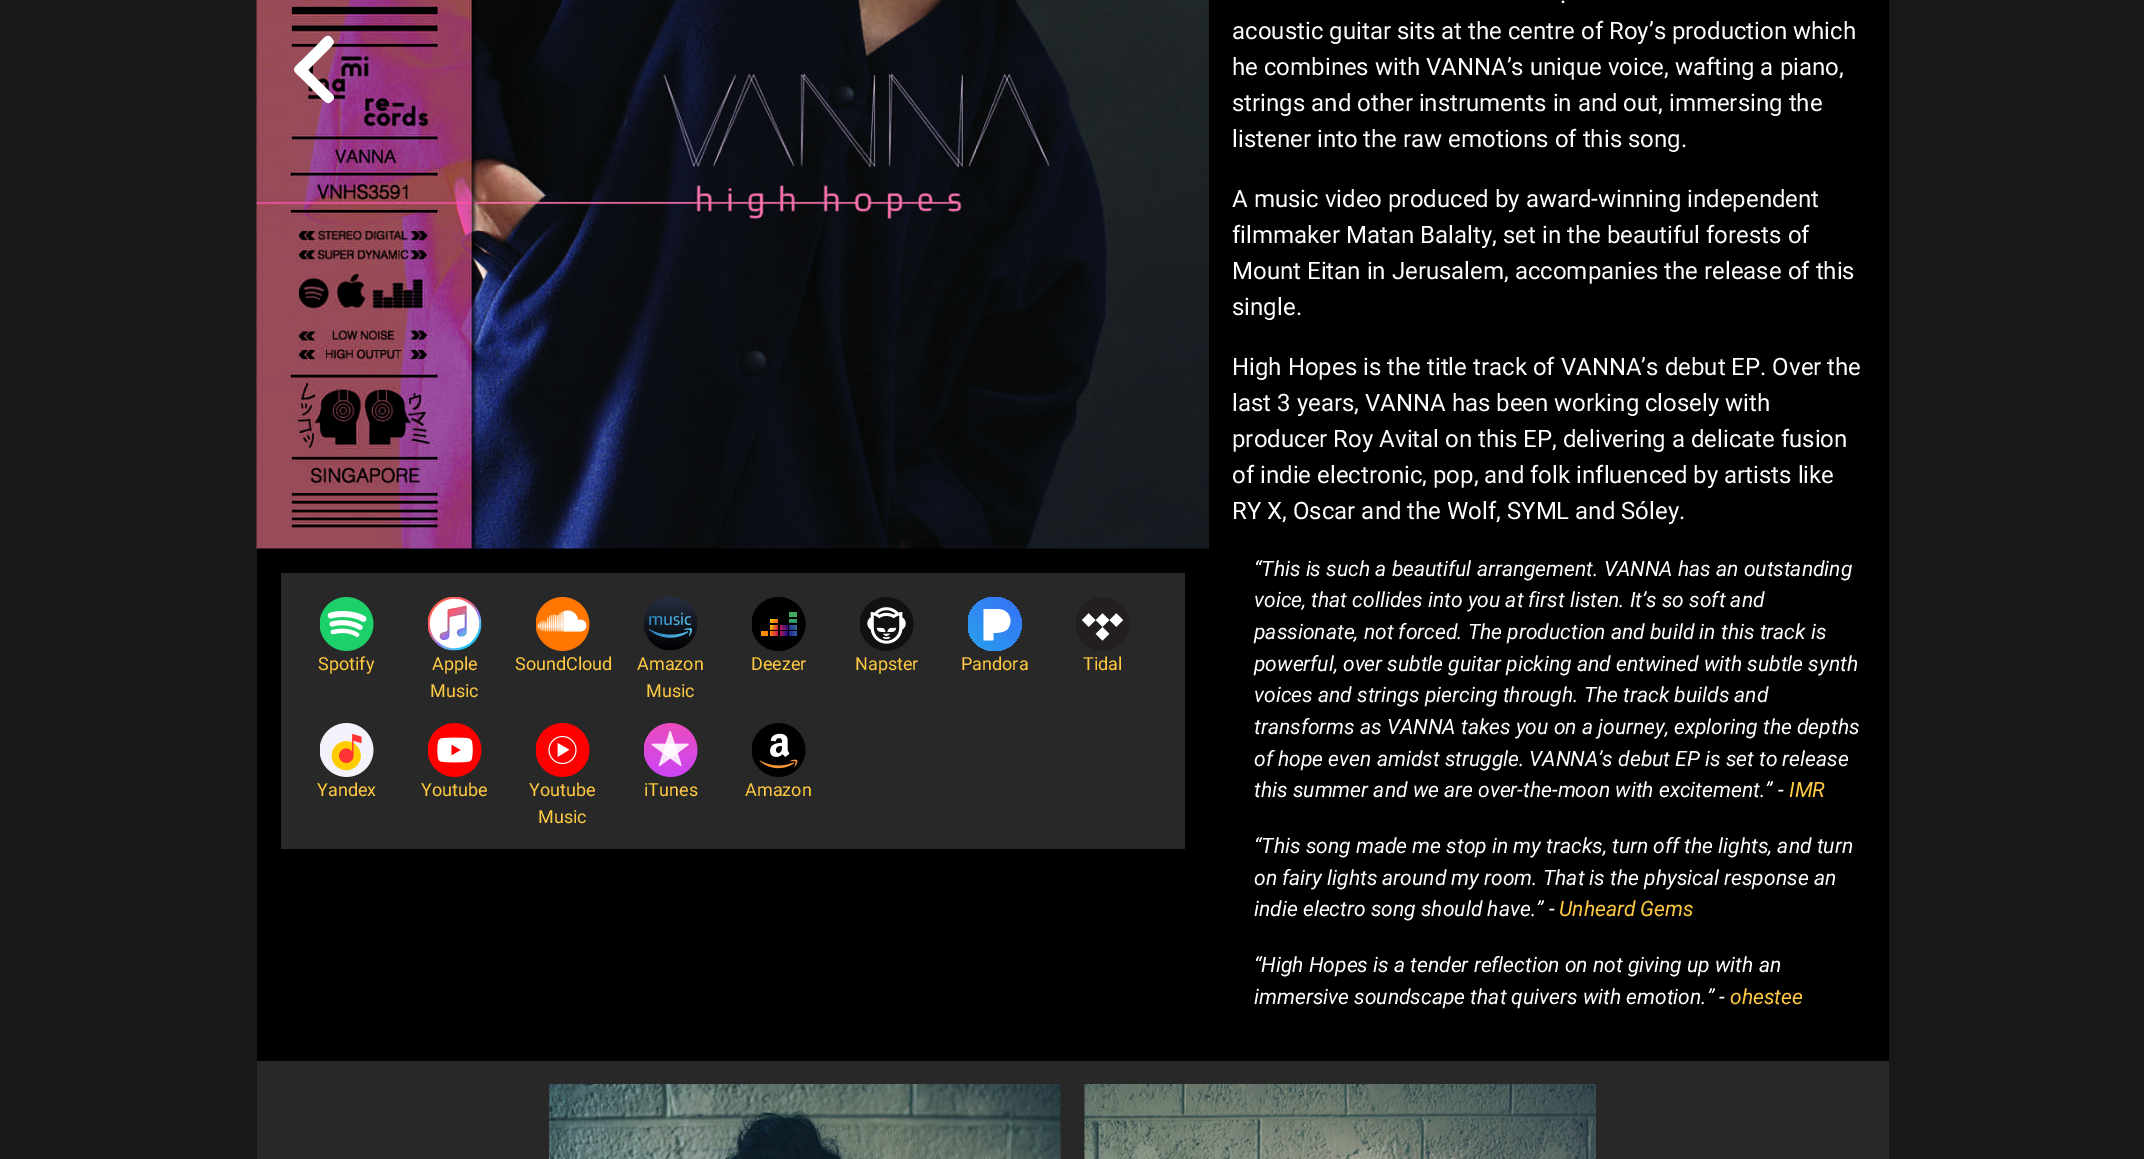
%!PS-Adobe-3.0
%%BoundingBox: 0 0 2144 1159
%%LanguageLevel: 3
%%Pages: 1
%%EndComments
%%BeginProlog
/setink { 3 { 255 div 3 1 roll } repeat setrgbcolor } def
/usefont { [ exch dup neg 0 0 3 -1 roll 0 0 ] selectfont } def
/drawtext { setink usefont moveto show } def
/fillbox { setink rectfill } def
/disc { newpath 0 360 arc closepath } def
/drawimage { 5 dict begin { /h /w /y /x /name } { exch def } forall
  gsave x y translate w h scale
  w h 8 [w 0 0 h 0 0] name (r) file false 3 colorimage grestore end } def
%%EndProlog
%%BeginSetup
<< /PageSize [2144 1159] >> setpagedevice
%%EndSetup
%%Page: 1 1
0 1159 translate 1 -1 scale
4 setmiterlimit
0 0 2144 1159 24 24 24 fillbox
257 0 1632 1061 0 0 0 fillbox
(assets/img1.rgb) 256 0 953 549 drawimage
255 255 255 setink
308 70 moveto 329 49 lineto 330 47 336 43 333 40 curveto 328 32 325 37 320 42 curveto 300 62 lineto 299 63 294 67 294 70 curveto 295 73 299 76 300 77 curveto 320 97 lineto 325 101 327 106 332 101 curveto 333 100 334 99 334 97 curveto 333 95 lineto closepath fill
281 573 904 276 40 40 40 fillbox
(assets/img2.rgb) 320 597 54 54 drawimage
(Spotify) 318 670 /Roboto-Regular 18 255 202 66 drawtext
(assets/img3.rgb) 428 597 54 54 drawimage
(Apple) 432 670 /Roboto-Regular 18 255 202 66 drawtext
(Music) 430 697 /Roboto-Regular 18 255 202 66 drawtext
(assets/img4.rgb) 536 597 54 54 drawimage
(SoundCloud) 515 670 /Roboto-Regular 18 255 202 66 drawtext
(assets/img5.rgb) 644 597 54 54 drawimage
(Amazon) 637 670 /Roboto-Regular 18 255 202 66 drawtext
(Music) 646 697 /Roboto-Regular 18 255 202 66 drawtext
gsave
752 597 54 54 rectclip
0 0 0 setink
778.5 624 27 disc fill
grestore
789 612 8 5 64 171 93 fillbox
gsave 770 619 moveto 778 619 lineto 778 623 lineto 770 623 lineto closepath clip newpath
<< /ShadingType 2 /ColorSpace /DeviceRGB /Coords [771 618 777 624] /Extend [true true] /Function << /FunctionType 2 /Domain [0 1] /C0 [1 0.82 0] /C1 [0.992 0.353 0.133] /N 1 >> >> shfill grestore
gsave 789 619 moveto 797 619 lineto 797 623 lineto 789 623 lineto closepath clip newpath
<< /ShadingType 2 /ColorSpace /DeviceRGB /Coords [793 623 793 618] /Extend [true true] /Function << /FunctionType 3 /Domain [0 1] /Functions [<< /FunctionType 2 /Domain [0 1] /C0 [0.208 0.549 0.482] /C1 [0.2 0.651 0.369] /N 1 >> << /FunctionType 2 /Domain [0 1] /C0 [0.2 0.651 0.369] /C1 [0.2 0.651 0.369] /N 1 >>] /Bounds [0.53] /Encode [0 1 0 1] >> >> shfill grestore
gsave 770 625 moveto 778 625 lineto 778 630 lineto 770 630 lineto closepath clip newpath
<< /ShadingType 2 /ColorSpace /DeviceRGB /Coords [770 626 778 629] /Extend [true true] /Function << /FunctionType 2 /Domain [0 1] /C0 [1 0.8 0] /C1 [0.808 0.098 0.22] /N 1 >> >> shfill grestore
gsave 780 625 moveto 788 625 lineto 788 630 lineto 780 630 lineto closepath clip newpath
<< /ShadingType 2 /ColorSpace /DeviceRGB /Coords [779 628 788 626] /Extend [true true] /Function << /FunctionType 2 /Domain [0 1] /C0 [0.8 0.098 0.325] /C1 [0.141 0.071 0.518] /N 1 >> >> shfill grestore
gsave 789 625 moveto 797 625 lineto 797 630 lineto 789 630 lineto closepath clip newpath
<< /ShadingType 2 /ColorSpace /DeviceRGB /Coords [789 629 797 625] /Extend [true true] /Function << /FunctionType 2 /Domain [0 1] /C0 [0.133 0.169 0.565] /C1 [0.212 0.482 0.6] /N 1 >> >> shfill grestore
gsave 761 631 moveto 768 631 lineto 768 636 lineto 761 636 lineto closepath clip newpath
<< /ShadingType 2 /ColorSpace /DeviceRGB /Coords [760 633 768 633] /Extend [true true] /Function << /FunctionType 2 /Domain [0 1] /C0 [1 0.6 0] /C1 [1 0.502 0] /N 1 >> >> shfill grestore
gsave 770 631 moveto 778 631 lineto 778 636 lineto 770 636 lineto closepath clip newpath
<< /ShadingType 2 /ColorSpace /DeviceRGB /Coords [770 633 778 633] /Extend [true true] /Function << /FunctionType 2 /Domain [0 1] /C0 [1 0.502 0] /C1 [0.8 0.098 0.325] /N 1 >> >> shfill grestore
gsave 780 631 moveto 788 631 lineto 788 636 lineto 780 636 lineto closepath clip newpath
<< /ShadingType 2 /ColorSpace /DeviceRGB /Coords [779 633 787 633] /Extend [true true] /Function << /FunctionType 2 /Domain [0 1] /C0 [0.8 0.098 0.325] /C1 [0.141 0.071 0.518] /N 1 >> >> shfill grestore
gsave 789 631 moveto 797 631 lineto 797 636 lineto 789 636 lineto closepath clip newpath
<< /ShadingType 2 /ColorSpace /DeviceRGB /Coords [789 633 797 633] /Extend [true true] /Function << /FunctionType 2 /Domain [0 1] /C0 [0.133 0.169 0.565] /C1 [0.208 0.349 0.651] /N 1 >> >> shfill grestore
(Deezer) 751 670 /Roboto-Regular 18 255 202 66 drawtext
(assets/img6.rgb) 860 597 54 54 drawimage
(Napster) 855 670 /Roboto-Regular 18 255 202 66 drawtext
gsave
968 597 54 54 rectclip
gsave 994.5 624 27 disc clip newpath
<< /ShadingType 2 /ColorSpace /DeviceRGB /Coords [1049 624 995 678] /Extend [true true] /Function << /FunctionType 2 /Domain [0 1] /C0 [0.22 0.439 0.969] /C1 [0.153 0.631 0.922] /N 1 >> >> shfill grestore
grestore
255 255 255 setink
983.5 625 moveto 983.5 640.5 lineto 991 640.5 lineto 993.5 640.5 993.5 640 993.5 637.5 curveto 993.5 633 lineto 998 633 1002.5 632.5 1006.5 630 curveto 1012.5 625 1011.5 613.5 1004 610.5 curveto 1001 609 997.5 609 994 609 curveto 983.5 609 lineto closepath eofill
(Pandora) 961 670 /Roboto-Regular 18 255 202 66 drawtext
(assets/img7.rgb) 1076 597 54 54 drawimage
(Tidal) 1083 670 /Roboto-Regular 18 255 202 66 drawtext
(assets/img8.rgb) 320 723 54 54 drawimage
(Yandex) 317 796 /Roboto-Regular 18 255 202 66 drawtext
(assets/img9.rgb) 428 723 54 54 drawimage
(Youtube) 421 796 /Roboto-Regular 18 255 202 66 drawtext
(assets/img10.rgb) 536 723 54 54 drawimage
(Youtube) 529 796 /Roboto-Regular 18 255 202 66 drawtext
(Music) 538 823 /Roboto-Regular 18 255 202 66 drawtext
(assets/img11.rgb) 644 723 54 54 drawimage
(iTunes) 644 796 /Roboto-Regular 18 255 202 66 drawtext
(assets/img12.rgb) 752 723 54 54 drawimage
(Amazon) 745 796 /Roboto-Regular 18 255 202 66 drawtext
(.) 1560 3 /Roboto-Regular 24 255 255 255 drawtext
(acoustic guitar sits at the centre of Roy’s production which) 1232 39 /Roboto-Regular 24 255 255 255 drawtext
(he combines with VANNA’s unique voice, wafting a piano,) 1232 75 /Roboto-Regular 24 255 255 255 drawtext
(strings and other instruments in and out, immersing the) 1232 111 /Roboto-Regular 24 255 255 255 drawtext
(listener into the raw emotions of this song.) 1232 147 /Roboto-Regular 24 255 255 255 drawtext
(A music video produced by award-winning independent) 1232 207 /Roboto-Regular 24 255 255 255 drawtext
(filmmaker Matan Balalty, set in the beautiful forests of) 1232 243 /Roboto-Regular 24 255 255 255 drawtext
(Mount Eitan in Jerusalem, accompanies the release of this) 1232 279 /Roboto-Regular 24 255 255 255 drawtext
(single.) 1232 315 /Roboto-Regular 24 255 255 255 drawtext
(High Hopes is the title track of VANNA’s debut EP. Over the) 1232 375 /Roboto-Regular 24 255 255 255 drawtext
(last 3 years, VANNA has been working closely with) 1232 411 /Roboto-Regular 24 255 255 255 drawtext
(producer Roy Avital on this EP, delivering a delicate fusion) 1232 447 /Roboto-Regular 24 255 255 255 drawtext
(of indie electronic, pop, and folk influenced by artists like) 1232 483 /Roboto-Regular 24 255 255 255 drawtext
(RY X, Oscar and the Wolf, SYML and Sóley.) 1232 519 /Roboto-Regular 24 255 255 255 drawtext
(“This is such a beautiful arrangement. VANNA has an outstanding) 1254 576 /Roboto-Italic 21.1 255 255 255 drawtext
(voice, that collides into you at first listen. It’s so soft and) 1254 607 /Roboto-Italic 21.1 255 255 255 drawtext
(passionate, not forced. The production and build in this track is) 1254 639 /Roboto-Italic 21.1 255 255 255 drawtext
(powerful, over subtle guitar picking and entwined with subtle synth) 1254 671 /Roboto-Italic 21.1 255 255 255 drawtext
(voices and strings piercing through. The track builds and) 1254 702 /Roboto-Italic 21.1 255 255 255 drawtext
(transforms as VANNA takes you on a journey, exploring the depths) 1254 734 /Roboto-Italic 21.1 255 255 255 drawtext
(of hope even amidst struggle. VANNA’s debut EP is set to release) 1254 766 /Roboto-Italic 21.1 255 255 255 drawtext
(this summer and we are over-the-moon with excitement.” -) 1254 797 /Roboto-Italic 21.1 255 255 255 drawtext
(IMR) 1789 797 /Roboto-Italic 21.1 255 202 66 drawtext
(“This song made me stop in my tracks, turn off the lights, and turn) 1254 853 /Roboto-Italic 21.1 255 255 255 drawtext
(on fairy lights around my room. That is the physical response an) 1254 885 /Roboto-Italic 21.1 255 255 255 drawtext
(indie electro song should have.” -) 1254 916 /Roboto-Italic 21.1 255 255 255 drawtext
(Unheard Gems) 1559 916 /Roboto-Italic 21.1 255 202 66 drawtext
(“High Hopes is a tender reflection on not giving up with an) 1254 972 /Roboto-Italic 21.1 255 255 255 drawtext
(immersive soundscape that quivers with emotion.” -) 1254 1004 /Roboto-Italic 21.1 255 255 255 drawtext
(ohestee) 1730 1004 /Roboto-Italic 21.1 255 202 66 drawtext
257 1061 1632 98 40 40 40 fillbox
(assets/img13.rgb) 549 1084 512 75 drawimage
(assets/img14.rgb) 1084 1084 512 75 drawimage
showpage
%%EOF
